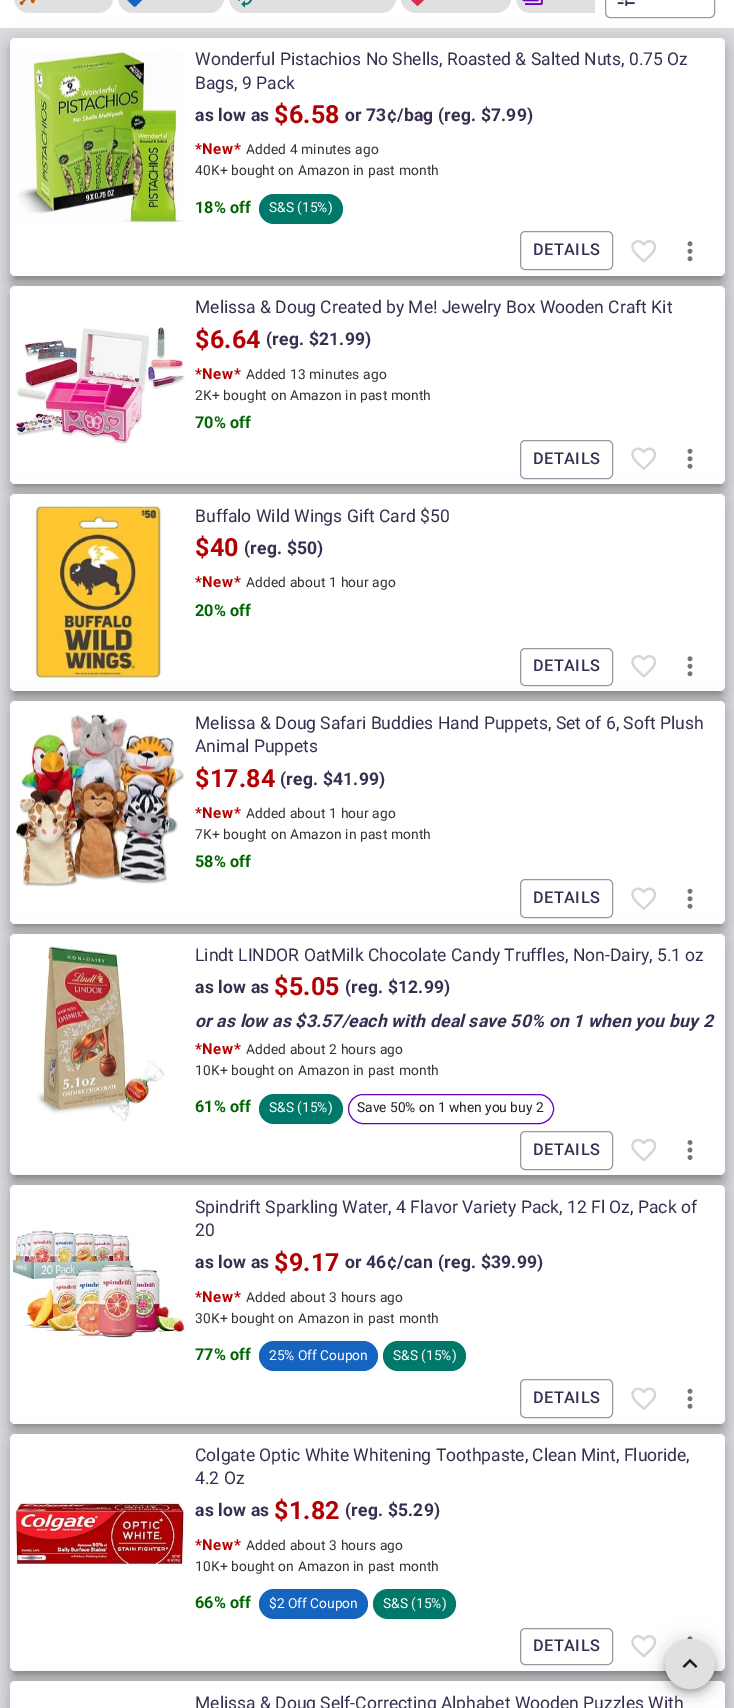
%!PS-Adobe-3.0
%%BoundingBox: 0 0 734 1708
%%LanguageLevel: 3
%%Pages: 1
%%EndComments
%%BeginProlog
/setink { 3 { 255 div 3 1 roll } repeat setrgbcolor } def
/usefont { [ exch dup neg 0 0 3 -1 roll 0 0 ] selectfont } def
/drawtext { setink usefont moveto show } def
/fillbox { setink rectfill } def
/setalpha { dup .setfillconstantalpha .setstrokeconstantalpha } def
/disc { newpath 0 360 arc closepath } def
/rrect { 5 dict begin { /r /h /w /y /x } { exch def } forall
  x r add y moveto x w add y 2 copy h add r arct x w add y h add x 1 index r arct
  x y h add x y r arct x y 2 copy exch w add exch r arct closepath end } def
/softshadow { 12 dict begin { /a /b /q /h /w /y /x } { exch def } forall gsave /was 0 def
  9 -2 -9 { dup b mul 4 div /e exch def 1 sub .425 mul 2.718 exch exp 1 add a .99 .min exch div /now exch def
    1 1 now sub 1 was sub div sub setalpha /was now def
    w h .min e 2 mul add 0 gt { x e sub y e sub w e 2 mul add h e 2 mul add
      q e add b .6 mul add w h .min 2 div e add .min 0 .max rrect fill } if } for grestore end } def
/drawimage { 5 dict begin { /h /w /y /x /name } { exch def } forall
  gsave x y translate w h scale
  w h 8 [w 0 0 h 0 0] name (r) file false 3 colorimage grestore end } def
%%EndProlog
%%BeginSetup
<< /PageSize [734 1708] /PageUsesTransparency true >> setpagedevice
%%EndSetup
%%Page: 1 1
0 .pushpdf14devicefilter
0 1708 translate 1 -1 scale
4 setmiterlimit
0 0 734 1708 255 255 255 fillbox
224 224 224 setink
14 -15 99 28 15 rrect fill
(assets/img1.rgb) 19 0 17 5 drawimage
118 -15 106 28 15 rrect fill
(assets/img2.rgb) 127 0 16 7 drawimage
229 -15 167 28 15 rrect fill
(assets/img3.rgb) 238 0 14 8 drawimage
401 -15 110 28 15 rrect fill
(assets/img4.rgb) 411 0 13 7 drawimage
531 -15 moveto 595 -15 lineto 595 13 lineto 531 13 lineto 522.5 13 516 6.5 516 -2 curveto 516 0 lineto 516 -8.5 522.5 -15 531 -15 curveto closepath fill
(assets/img5.rgb) 522 0 21 5 drawimage
156 151 168 setink
605.5 -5.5 109 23 4.5 rrect stroke
(assets/img6.rgb) 617 0 18 6 drawimage
0 28 734 1680 220 219 223 fillbox
0 0 0 setink
8 39 720 244 8 9 0.12 softshadow
9 46 717 242 6 6 0.14 softshadow
14 48 707 231 1 3 0.2 softshadow
255 255 255 setink
10 38 715 238 5 rrect fill
(assets/img7.rgb) 17 50 168 173 drawimage
(Wonderful Pistachios No Shells, Roasted & Salted Nuts, 0.75 Oz) 195 65 /Roboto-Regular 17.5 57 46 80 drawtext
(Bags, 9 Pack) 195 89 /Roboto-Regular 17.5 57 46 80 drawtext
/Roboto-Bold 17.5 usefont
195 121 moveto 0.2 0 (as low as) ashow
/Roboto-Bold 25 usefont
179 0 0 setink
274 123 moveto 0.2 0 ($6.58) ashow
/Roboto-Bold 17.5 usefont
57 46 80 setink
345 121 moveto 0.2 0 (or 73¢/bag) ashow
438 121 moveto 0.2 0 (\(reg. $7.99\)) ashow
/Roboto-Bold 15 usefont
179 0 0 setink
195 154 moveto 0.5 0 (*New*) ashow
/Roboto-Regular 13.75 usefont
51 51 51 setink
246 154 moveto 0.15 0 (Added 4 minutes ago) ashow
195 175 moveto 0.15 0 (40K+ bought on Amazon in past month) ashow
(18% off) 195 213 /Roboto-Bold 16.25 0 102 0 drawtext
0 121 107 setink
259 194 84 30 15 rrect fill
(S&S \(15%\)) 269 212 /Roboto-Regular 13.75 255 255 255 drawtext
156 151 168 setink
520.5 231.5 92 38 4.5 rrect stroke
/Roboto-Medium 16.25 usefont
57 46 80 setink
533 255 moveto 0.5 0 (DETAILS) ashow
(assets/img8.rgb) 631 240 26 23 drawimage
(assets/img9.rgb) 687 241 6 21 drawimage
0 0 0 setink
8 288 720 202 8 9 0.12 softshadow
9 295 717 200 6 6 0.14 softshadow
14 296 707 190 1 3 0.2 softshadow
255 255 255 setink
10 286 715 198 5 rrect fill
(assets/img10.rgb) 15 327 170 117 drawimage
(Melissa & Doug Created by Me! Jewelry Box Wooden Craft Kit) 195 313 /Roboto-Regular 17.5 57 46 80 drawtext
/Roboto-Bold 25 usefont
179 0 0 setink
195 348 moveto 0.2 0 ($6.64) ashow
/Roboto-Bold 17.5 usefont
57 46 80 setink
266 345 moveto 0.2 0 (\(reg. $21.99\)) ashow
/Roboto-Bold 15 usefont
179 0 0 setink
195 379 moveto 0.5 0 (*New*) ashow
/Roboto-Regular 13.75 usefont
51 51 51 setink
246 379 moveto 0.15 0 (Added 13 minutes ago) ashow
195 400 moveto 0.15 0 (2K+ bought on Amazon in past month) ashow
(70% off) 195 428 /Roboto-Bold 16.25 0 102 0 drawtext
156 151 168 setink
520.5 440.5 92 38 4.5 rrect stroke
/Roboto-Medium 16.25 usefont
57 46 80 setink
533 464 moveto 0.5 0 (DETAILS) ashow
(assets/img11.rgb) 631 447 26 24 drawimage
(assets/img12.rgb) 687 448 6 21 drawimage
0 0 0 setink
8 495 720 203 8 9 0.12 softshadow
9 503 717 200 6 6 0.14 softshadow
14 504 707 190 1 3 0.2 softshadow
255 255 255 setink
10 494 715 197 5 rrect fill
(assets/img13.rgb) 31 505 134 176 drawimage
(Buffalo Wild Wings Gift Card $50) 195 522 /Roboto-Regular 17.5 57 46 80 drawtext
/Roboto-Bold 25 usefont
179 0 0 setink
195 556 moveto 0.2 0 ($40) ashow
/Roboto-Bold 17.5 usefont
57 46 80 setink
244 554 moveto 0.2 0 (\(reg. $50\)) ashow
/Roboto-Bold 15 usefont
179 0 0 setink
195 587 moveto 0.5 0 (*New*) ashow
/Roboto-Regular 13.75 usefont
51 51 51 setink
246 587 moveto 0.15 0 (Added about 1 hour ago) ashow
(20% off) 195 616 /Roboto-Bold 16.25 0 102 0 drawtext
156 151 168 setink
520.5 648.5 92 37 4.5 rrect stroke
/Roboto-Medium 16.25 usefont
57 46 80 setink
533 671 moveto 0.5 0 (DETAILS) ashow
(assets/img8.rgb) 631 655 26 23 drawimage
(assets/img9.rgb) 687 656 6 21 drawimage
0 0 0 setink
8 703 720 227 8 9 0.12 softshadow
9 710 717 225 6 6 0.14 softshadow
14 711 707 215 1 3 0.2 softshadow
255 255 255 setink
10 701 715 223 5 rrect fill
(assets/img14.rgb) 15 714 170 173 drawimage
(Melissa & Doug Safari Buddies Hand Puppets, Set of 6, Soft Plush) 195 729 /Roboto-Regular 17.5 57 46 80 drawtext
(Animal Puppets) 195 752 /Roboto-Regular 17.5 57 46 80 drawtext
/Roboto-Bold 25 usefont
179 0 0 setink
195 787 moveto 0.2 0 ($17.84) ashow
/Roboto-Bold 17.5 usefont
57 46 80 setink
280 785 moveto 0.2 0 (\(reg. $41.99\)) ashow
/Roboto-Bold 15 usefont
179 0 0 setink
195 818 moveto 0.5 0 (*New*) ashow
/Roboto-Regular 13.75 usefont
51 51 51 setink
246 818 moveto 0.15 0 (Added about 1 hour ago) ashow
195 839 moveto 0.15 0 (7K+ bought on Amazon in past month) ashow
(58% off) 195 867 /Roboto-Bold 16.25 0 102 0 drawtext
156 151 168 setink
520.5 879.5 92 38 4.5 rrect stroke
/Roboto-Medium 16.25 usefont
57 46 80 setink
533 903 moveto 0.5 0 (DETAILS) ashow
(assets/img11.rgb) 631 887 26 24 drawimage
(assets/img12.rgb) 687 888 6 21 drawimage
0 0 0 setink
8 935 720 246 8 9 0.12 softshadow
9 943 717 243 6 6 0.14 softshadow
14 944 707 234 1 3 0.2 softshadow
255 255 255 setink
10 934 715 241 5 rrect fill
(assets/img15.rgb) 36 946 129 175 drawimage
(Lindt LINDOR OatMilk Chocolate Candy Truffles, Non-Dairy, 5.1 oz) 195 961 /Roboto-Regular 17.5 57 46 80 drawtext
/Roboto-Bold 17.5 usefont
195 993 moveto 0.2 0 (as low as) ashow
/Roboto-Bold 25 usefont
179 0 0 setink
274 995 moveto 0.2 0 ($5.05) ashow
/Roboto-Bold 17.5 usefont
57 46 80 setink
345 993 moveto 0.2 0 (\(reg. $12.99\)) ashow
/Roboto-BoldItalic 17.5 usefont
195 1027 moveto 0.2 0 (or as low as $3.57/each with deal save 50% on 1 when you buy 2) ashow
/Roboto-Bold 15 usefont
179 0 0 setink
195 1054 moveto 0.5 0 (*New*) ashow
/Roboto-Regular 13.75 usefont
51 51 51 setink
246 1054 moveto 0.15 0 (Added about 2 hours ago) ashow
195 1075 moveto 0.15 0 (10K+ bought on Amazon in past month) ashow
(61% off) 195 1112 /Roboto-Bold 16.25 0 102 0 drawtext
0 121 107 setink
259 1094 84 30 15 rrect fill
(S&S \(15%\)) 269 1112 /Roboto-Regular 13.75 255 255 255 drawtext
105 0 194 setink
348.5 1094.5 205 29 14.5 rrect stroke
(Save 50% on 1 when you buy 2) 357 1112 /Roboto-Regular 13.75 33 33 33 drawtext
156 151 168 setink
520.5 1131.5 92 38 4.5 rrect stroke
/Roboto-Medium 16.25 usefont
57 46 80 setink
533 1155 moveto 0.5 0 (DETAILS) ashow
(assets/img16.rgb) 631 1138 26 24 drawimage
(assets/img17.rgb) 687 1140 6 20 drawimage
0 0 0 setink
8 1186 720 244 8 9 0.12 softshadow
9 1194 717 241 6 6 0.14 softshadow
14 1195 707 231 1 3 0.2 softshadow
255 255 255 setink
10 1185 715 239 5 rrect fill
(assets/img18.rgb) 10 1230 175 108 drawimage
(Spindrift Sparkling Water, 4 Flavor Variety Pack, 12 Fl Oz, Pack of) 195 1213 /Roboto-Regular 17.5 57 46 80 drawtext
(20) 195 1236 /Roboto-Regular 17.5 57 46 80 drawtext
/Roboto-Bold 17.5 usefont
195 1268 moveto 0.2 0 (as low as) ashow
/Roboto-Bold 25 usefont
179 0 0 setink
274 1271 moveto 0.2 0 ($9.17) ashow
/Roboto-Bold 17.5 usefont
57 46 80 setink
345 1268 moveto 0.2 0 (or 46¢/can) ashow
438 1268 moveto 0.2 0 (\(reg. $39.99\)) ashow
/Roboto-Bold 15 usefont
179 0 0 setink
195 1302 moveto 0.5 0 (*New*) ashow
/Roboto-Regular 13.75 usefont
51 51 51 setink
246 1302 moveto 0.15 0 (Added about 3 hours ago) ashow
195 1323 moveto 0.15 0 (30K+ bought on Amazon in past month) ashow
(77% off) 195 1360 /Roboto-Bold 16.25 0 102 0 drawtext
21 101 192 setink
259 1341 119 30 15 rrect fill
(25% Off Coupon) 269 1360 /Roboto-Regular 13.75 255 255 255 drawtext
0 121 107 setink
383 1341 83 30 15 rrect fill
(S&S \(15%\)) 393 1360 /Roboto-Regular 13.75 255 255 255 drawtext
156 151 168 setink
520.5 1379.5 92 38 4.5 rrect stroke
/Roboto-Medium 16.25 usefont
57 46 80 setink
533 1403 moveto 0.5 0 (DETAILS) ashow
(assets/img11.rgb) 631 1387 26 24 drawimage
(assets/img12.rgb) 687 1388 6 21 drawimage
0 0 0 setink
8 1435 720 243 8 9 0.12 softshadow
9 1443 717 240 6 6 0.14 softshadow
14 1444 707 230 1 3 0.2 softshadow
255 255 255 setink
10 1434 715 237 5 rrect fill
(assets/img19.rgb) 15 1502 170 63 drawimage
(Colgate Optic White Whitening Toothpaste, Clean Mint, Fluoride,) 195 1461 /Roboto-Regular 17.5 57 46 80 drawtext
(4.2 Oz) 195 1484 /Roboto-Regular 17.5 57 46 80 drawtext
/Roboto-Bold 17.5 usefont
195 1516 moveto 0.2 0 (as low as) ashow
/Roboto-Bold 25 usefont
179 0 0 setink
274 1519 moveto 0.2 0 ($1.82) ashow
/Roboto-Bold 17.5 usefont
57 46 80 setink
345 1516 moveto 0.2 0 (\(reg. $5.29\)) ashow
/Roboto-Bold 15 usefont
179 0 0 setink
195 1550 moveto 0.5 0 (*New*) ashow
/Roboto-Regular 13.75 usefont
51 51 51 setink
246 1550 moveto 0.15 0 (Added about 3 hours ago) ashow
195 1571 moveto 0.15 0 (10K+ bought on Amazon in past month) ashow
(66% off) 195 1608 /Roboto-Bold 16.25 0 102 0 drawtext
21 101 192 setink
259 1589 109 30 15 rrect fill
($2 Off Coupon) 269 1608 /Roboto-Regular 13.75 255 255 255 drawtext
0 121 107 setink
373 1589 83 30 15 rrect fill
(S&S \(15%\)) 383 1608 /Roboto-Regular 13.75 255 255 255 drawtext
(assets/img8.rgb) 631 1635 26 23 drawimage
(assets/img20.rgb) 687 1636 6 4 drawimage
156 151 168 setink
520.5 1628.5 92 36 4.5 rrect stroke
/Roboto-Medium 16.25 usefont
57 46 80 setink
533 1651 moveto 0.5 0 (DETAILS) ashow
0 0 0 setink
8 1683 720 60 8 9 0.12 softshadow
9 1690 717 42 6 6 0.14 softshadow
255 255 255 setink
10 1681 715 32 5 rrect fill
(Melissa & Doug Self-Correcting Alphabet Wooden Puzzles With) 195 1709 /Roboto-Regular 17.5 57 46 80 drawtext
0 0 0 setink
665 1640 50 50 25 11 0.12 softshadow
665 1646 50 50 25 6 0.14 softshadow
666 1644 48 47 23.5 3 0.2 softshadow
224 224 224 setink
690 1664 25 disc fill
(assets/img21.rgb) 682 1658 16 10 drawimage
.poppdf14devicefilter showpage
%%EOF
